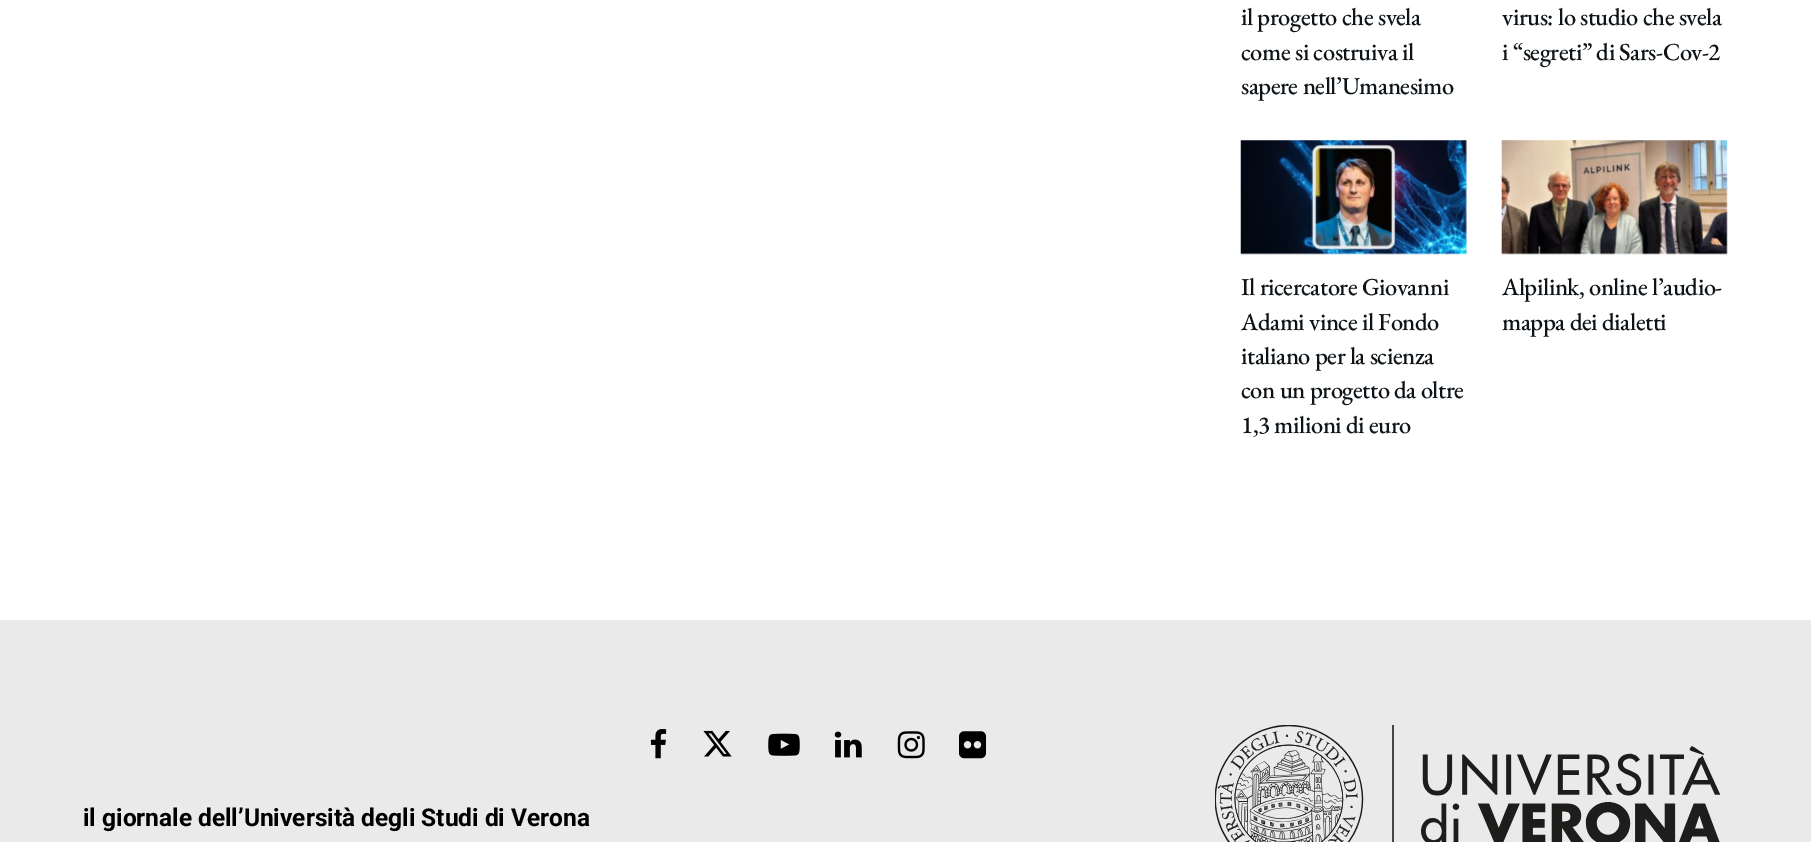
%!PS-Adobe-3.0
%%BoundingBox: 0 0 1811 842
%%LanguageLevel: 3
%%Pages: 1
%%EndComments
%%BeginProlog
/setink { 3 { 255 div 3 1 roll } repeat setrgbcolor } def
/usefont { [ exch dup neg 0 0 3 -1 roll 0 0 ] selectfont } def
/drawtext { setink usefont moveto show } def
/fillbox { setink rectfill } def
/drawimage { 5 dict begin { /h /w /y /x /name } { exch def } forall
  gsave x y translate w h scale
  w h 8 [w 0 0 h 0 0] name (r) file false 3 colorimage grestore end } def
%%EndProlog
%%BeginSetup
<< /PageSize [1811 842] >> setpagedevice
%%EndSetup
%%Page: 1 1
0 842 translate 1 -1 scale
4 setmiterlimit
0 0 1811 842 255 255 255 fillbox
/EBGaramond-Medium 24.5 usefont
13 19 23 setink
1241 25 moveto -0.5 0 (il progetto che svela) ashow
1241 60 moveto -0.5 0 (come si costruiva il) ashow
1241 94 moveto -0.5 0 (sapere nell’Umanesimo) ashow
1502 25 moveto -0.5 0 (virus: lo studio che svela) ashow
1502 60 moveto -0.5 0 (i “segreti” di Sars-Cov-2) ashow
1241 140 226 114 247 247 247 fillbox
(assets/img2.rgb) 1299 140 41 114 drawimage
(assets/img1.rgb) 1240 140 227 115 drawimage
13 19 23 setink
1241 295 moveto -0.5 0 (Il ricercatore Giovanni) ashow
1241 330 moveto -0.5 0 (Adami vince il Fondo) ashow
1241 364 moveto -0.5 0 (italiano per la scienza) ashow
1241 398 moveto -0.5 0 (con un progetto da oltre) ashow
1241 433 moveto -0.5 0 (1,3 milioni di euro) ashow
1502 140 225 114 247 247 247 fillbox
(assets/img4.rgb) 1560 140 41 114 drawimage
(assets/img3.rgb) 1501 140 227 115 drawimage
13 19 23 setink
1502 295 moveto -0.5 0 (Alpilink, online l’audio-) ashow
1502 330 moveto -0.5 0 (mappa dei dialetti) ashow
0 620 1811 222 234 234 234 fillbox
(assets/img5.rgb) 650 729 17 30 drawimage
(assets/img6.rgb) 703 730 29 27 drawimage
(assets/img7.rgb) 768 733 32 23 drawimage
(assets/img8.rgb) 834 731 28 27 drawimage
(assets/img9.rgb) 897 731 28 28 drawimage
(assets/img10.rgb) 959 731 27 28 drawimage
(assets/img11.rgb) 1215 725 505 117 drawimage
(il giornale dell’Università degli Studi di Verona) 83 826 /Roboto-Bold 24.5 0 0 0 drawtext
showpage
%%EOF
